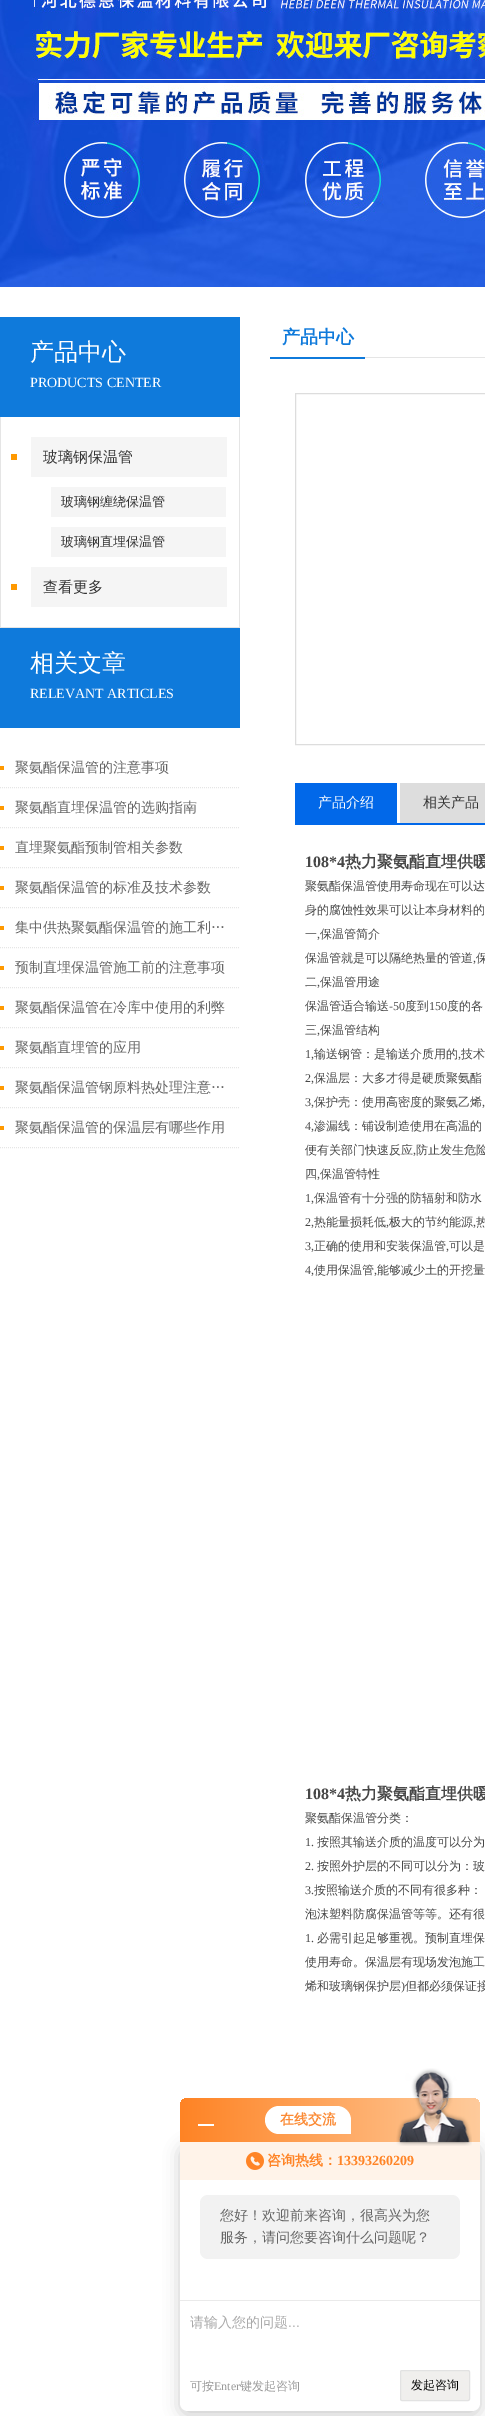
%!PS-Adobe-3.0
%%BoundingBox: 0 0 485 2416
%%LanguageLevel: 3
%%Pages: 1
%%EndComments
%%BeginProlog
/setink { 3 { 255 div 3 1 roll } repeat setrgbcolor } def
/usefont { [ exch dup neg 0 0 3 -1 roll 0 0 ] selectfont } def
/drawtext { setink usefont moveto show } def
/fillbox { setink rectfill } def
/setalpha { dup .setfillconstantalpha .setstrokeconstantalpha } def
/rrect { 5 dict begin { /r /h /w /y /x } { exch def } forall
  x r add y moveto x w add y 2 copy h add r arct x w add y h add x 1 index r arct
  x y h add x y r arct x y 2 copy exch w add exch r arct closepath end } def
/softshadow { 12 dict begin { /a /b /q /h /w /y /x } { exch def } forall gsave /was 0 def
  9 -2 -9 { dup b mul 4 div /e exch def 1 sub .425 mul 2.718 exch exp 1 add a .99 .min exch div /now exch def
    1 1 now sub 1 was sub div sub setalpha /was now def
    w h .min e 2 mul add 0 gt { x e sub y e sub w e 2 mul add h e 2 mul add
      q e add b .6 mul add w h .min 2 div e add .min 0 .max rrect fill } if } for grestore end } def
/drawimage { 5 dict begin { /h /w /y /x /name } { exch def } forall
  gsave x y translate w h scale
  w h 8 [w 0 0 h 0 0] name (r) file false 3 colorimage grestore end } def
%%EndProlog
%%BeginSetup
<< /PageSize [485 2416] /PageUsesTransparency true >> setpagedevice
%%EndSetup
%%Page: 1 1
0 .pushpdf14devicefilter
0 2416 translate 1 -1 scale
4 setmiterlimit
0 0 485 2416 255 255 255 fillbox
(assets/img1.rgb) 0 0 485 287 drawimage
0 317 240 100 15 122 219 fillbox
(产品中心) 30 360 /WenQuanYiZenHei-Medium 24 255 255 255 drawtext
(PRODUCTS CENTER) 30 387 /LiberationSerif-Regular 14 255 255 255 drawtext
239 417 1 211 229 229 229 fillbox
0 627 240 1 229 229 229 fillbox
0 417 1 211 229 229 229 fillbox
11 454 6 6 255 153 0 fillbox
31 437 196 40 245 245 245 fillbox
(玻璃钢保温管) 43 462 /WenQuanYiZenHei-Medium 15 51 51 51 drawtext
51 487 175 30 245 245 245 fillbox
(玻璃钢缠绕保温管) 61 506 /WenQuanYiZenHei-Medium 13 51 51 51 drawtext
51 527 175 30 245 245 245 fillbox
(玻璃钢直埋保温管) 61 546 /WenQuanYiZenHei-Medium 13 51 51 51 drawtext
11 584 6 6 255 153 0 fillbox
31 567 196 40 245 245 245 fillbox
(查看更多) 43 592 /WenQuanYiZenHei-Medium 15 51 51 51 drawtext
0 628 240 100 15 122 219 fillbox
(相关文章) 30 671 /WenQuanYiZenHei-Medium 24 255 255 255 drawtext
(RELEVANT ARTICLES) 30 698 /LiberationSerif-Regular 14 255 255 255 drawtext
0 766 4 4 255 153 0 fillbox
229 229 229 setink
[1 1] 0 setdash
0 787.5 moveto 240 787.5 lineto stroke
(聚氨酯保温管的注意事项) 15 772 /WenQuanYiZenHei-Medium 14 102 102 102 drawtext
0 806 4 4 255 153 0 fillbox
229 229 229 setink
0 827.5 moveto 240 827.5 lineto stroke
(聚氨酯直埋保温管的选购指南) 15 812 /WenQuanYiZenHei-Medium 14 102 102 102 drawtext
0 846 4 4 255 153 0 fillbox
229 229 229 setink
0 867.5 moveto 240 867.5 lineto stroke
(直埋聚氨酯预制管相关参数) 15 852 /WenQuanYiZenHei-Medium 14 102 102 102 drawtext
0 886 4 4 255 153 0 fillbox
229 229 229 setink
0 907.5 moveto 240 907.5 lineto stroke
(聚氨酯保温管的标准及技术参数) 15 892 /WenQuanYiZenHei-Medium 14 102 102 102 drawtext
0 926 4 4 255 153 0 fillbox
229 229 229 setink
0 947.5 moveto 240 947.5 lineto stroke
(集中供热聚氨酯保温管的施工利…) 15 932 /WenQuanYiZenHei-Medium 14 102 102 102 drawtext
0 966 4 4 255 153 0 fillbox
229 229 229 setink
0 987.5 moveto 240 987.5 lineto stroke
(预制直埋保温管施工前的注意事项) 15 972 /WenQuanYiZenHei-Medium 14 102 102 102 drawtext
0 1006 4 4 255 153 0 fillbox
229 229 229 setink
0 1027.5 moveto 240 1027.5 lineto stroke
(聚氨酯保温管在冷库中使用的利弊) 15 1012 /WenQuanYiZenHei-Medium 14 102 102 102 drawtext
0 1046 4 4 255 153 0 fillbox
229 229 229 setink
0 1067.5 moveto 240 1067.5 lineto stroke
(聚氨酯直埋管的应用) 15 1052 /WenQuanYiZenHei-Medium 14 102 102 102 drawtext
0 1086 4 4 255 153 0 fillbox
229 229 229 setink
0 1107.5 moveto 240 1107.5 lineto stroke
(聚氨酯保温管钢原料热处理注意…) 15 1092 /WenQuanYiZenHei-Medium 14 102 102 102 drawtext
0 1126 4 4 255 153 0 fillbox
229 229 229 setink
0 1147.5 moveto 240 1147.5 lineto stroke
(聚氨酯保温管的保温层有哪些作用) 15 1132 /WenQuanYiZenHei-Medium 14 102 102 102 drawtext
365 357 120 1 229 229 229 fillbox
270 357 95 2 15 122 219 fillbox
(产品中心) 282 343 /WenQuanYiZenHei-Bold 18 15 122 219 drawtext
221 221 221 setink
[] 0 setdash
295.5 393.5 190 351 rectstroke
295 823 190 2 1 104 233 fillbox
295 783 102 40 1 104 233 fillbox
(产品介绍) 318 807 /WenQuanYiZenHei-Medium 14 255 255 255 drawtext
400 783 85 40 221 221 221 fillbox
(相关产品) 423 807 /WenQuanYiZenHei-Medium 14 51 51 51 drawtext
(108*4) 305 867 /LiberationSerif-Bold 16 71 71 71 drawtext
(热力聚氨酯直埋供暖) 345 867 /WenQuanYiZenHei-Bold 16 71 71 71 drawtext
(聚氨酯保温管使用寿命现在可以达) 305 890 /WenQuanYiZenHei-Medium 12 71 71 71 drawtext
(身的腐蚀性效果可以让本身材料的) 305 914 /WenQuanYiZenHei-Medium 12 71 71 71 drawtext
(一) 305 938 /WenQuanYiZenHei-Medium 12 71 71 71 drawtext
(保温管简介) 320 938 /WenQuanYiZenHei-Medium 12 71 71 71 drawtext
(,) 317 938 /LiberationSerif-Regular 12 71 71 71 drawtext
(保温管就是可以隔绝热量的管道) 305 962 /WenQuanYiZenHei-Medium 12 71 71 71 drawtext
(,) 473 962 /LiberationSerif-Regular 12 71 71 71 drawtext
(保) 476 962 /WenQuanYiZenHei-Medium 12 71 71 71 drawtext
(二) 305 986 /WenQuanYiZenHei-Medium 12 71 71 71 drawtext
(,) 317 986 /LiberationSerif-Regular 12 71 71 71 drawtext
(保温管用途) 320 986 /WenQuanYiZenHei-Medium 12 71 71 71 drawtext
(保温管适合输送) 305 1010 /WenQuanYiZenHei-Medium 12 71 71 71 drawtext
(-50) 389 1010 /LiberationSerif-Regular 12 71 71 71 drawtext
(度到) 405 1010 /WenQuanYiZenHei-Medium 12 71 71 71 drawtext
(150) 429 1010 /LiberationSerif-Regular 12 71 71 71 drawtext
(度的各) 447 1010 /WenQuanYiZenHei-Medium 12 71 71 71 drawtext
(三) 305 1034 /WenQuanYiZenHei-Medium 12 71 71 71 drawtext
(,) 317 1034 /LiberationSerif-Regular 12 71 71 71 drawtext
(保温管结构) 320 1034 /WenQuanYiZenHei-Medium 12 71 71 71 drawtext
(1,) 305 1058 /LiberationSerif-Regular 12 71 71 71 drawtext
(输送钢管：是输送介质用的) 314 1058 /WenQuanYiZenHei-Medium 12 71 71 71 drawtext
(,) 458 1058 /LiberationSerif-Regular 12 71 71 71 drawtext
(技术) 461 1058 /WenQuanYiZenHei-Medium 12 71 71 71 drawtext
(2,) 305 1082 /LiberationSerif-Regular 12 71 71 71 drawtext
(保温层：大多才得是硬质聚氨酯) 314 1082 /WenQuanYiZenHei-Medium 12 71 71 71 drawtext
(3,) 305 1106 /LiberationSerif-Regular 12 71 71 71 drawtext
(保护壳：使用高密度的聚氨乙烯) 314 1106 /WenQuanYiZenHei-Medium 12 71 71 71 drawtext
(,) 482 1106 /LiberationSerif-Regular 12 71 71 71 drawtext
(4,) 305 1130 /LiberationSerif-Regular 12 71 71 71 drawtext
(渗漏线：铺设制造使用在高温的) 314 1130 /WenQuanYiZenHei-Medium 12 71 71 71 drawtext
(便有关部门快速反应) 305 1154 /WenQuanYiZenHei-Medium 12 71 71 71 drawtext
(,) 413 1154 /LiberationSerif-Regular 12 71 71 71 drawtext
(防止发生危险) 416 1154 /WenQuanYiZenHei-Medium 12 71 71 71 drawtext
(四) 305 1178 /WenQuanYiZenHei-Medium 12 71 71 71 drawtext
(,) 317 1178 /LiberationSerif-Regular 12 71 71 71 drawtext
(保温管特性) 320 1178 /WenQuanYiZenHei-Medium 12 71 71 71 drawtext
(1,) 305 1202 /LiberationSerif-Regular 12 71 71 71 drawtext
(保温管有十分强的防辐射和防水) 314 1202 /WenQuanYiZenHei-Medium 12 71 71 71 drawtext
(2,) 305 1226 /LiberationSerif-Regular 12 71 71 71 drawtext
(热能量损耗低) 314 1226 /WenQuanYiZenHei-Medium 12 71 71 71 drawtext
(,) 386 1226 /LiberationSerif-Regular 12 71 71 71 drawtext
(极大的节约能源) 389 1226 /WenQuanYiZenHei-Medium 12 71 71 71 drawtext
(,) 473 1226 /LiberationSerif-Regular 12 71 71 71 drawtext
(热) 476 1226 /WenQuanYiZenHei-Medium 12 71 71 71 drawtext
(3,) 305 1250 /LiberationSerif-Regular 12 71 71 71 drawtext
(正确的使用和安装保温管) 314 1250 /WenQuanYiZenHei-Medium 12 71 71 71 drawtext
(,) 446 1250 /LiberationSerif-Regular 12 71 71 71 drawtext
(可以是) 449 1250 /WenQuanYiZenHei-Medium 12 71 71 71 drawtext
(4,) 305 1274 /LiberationSerif-Regular 12 71 71 71 drawtext
(使用保温管) 314 1274 /WenQuanYiZenHei-Medium 12 71 71 71 drawtext
(,) 374 1274 /LiberationSerif-Regular 12 71 71 71 drawtext
(能够减少土的开挖量) 377 1274 /WenQuanYiZenHei-Medium 12 71 71 71 drawtext
(108*4) 305 1799 /LiberationSerif-Bold 16 71 71 71 drawtext
(热力聚氨酯直埋供暖) 345 1799 /WenQuanYiZenHei-Bold 16 71 71 71 drawtext
(聚氨酯保温管分类：) 305 1822 /WenQuanYiZenHei-Medium 12 71 71 71 drawtext
(1.) 305 1846 /LiberationSerif-Regular 12 71 71 71 drawtext
(按照其输送介质的温度可以分为) 317 1846 /WenQuanYiZenHei-Medium 12 71 71 71 drawtext
(2.) 305 1870 /LiberationSerif-Regular 12 71 71 71 drawtext
(按照外护层的不同可以分为：玻) 317 1870 /WenQuanYiZenHei-Medium 12 71 71 71 drawtext
(3.) 305 1894 /LiberationSerif-Regular 12 71 71 71 drawtext
(按照输送介质的不同有很多种：) 314 1894 /WenQuanYiZenHei-Medium 12 71 71 71 drawtext
(泡沫塑料防腐保温管等等。还有很) 305 1918 /WenQuanYiZenHei-Medium 12 71 71 71 drawtext
(1.) 305 1942 /LiberationSerif-Regular 12 71 71 71 drawtext
(必需引起足够重视。预制直埋保) 317 1942 /WenQuanYiZenHei-Medium 12 71 71 71 drawtext
(使用寿命。保温层有现场发泡施工) 305 1966 /WenQuanYiZenHei-Medium 12 71 71 71 drawtext
(烯和玻璃钢保护层) 305 1990 /WenQuanYiZenHei-Medium 12 71 71 71 drawtext
(\)) 401 1990 /LiberationSerif-Regular 12 71 71 71 drawtext
(但都必须保证接) 405 1990 /WenQuanYiZenHei-Medium 12 71 71 71 drawtext
0 0 0 setink
180 2146 300 269 8 8 0.2 softshadow
gsave 188 2098 moveto 472 2098 lineto 476.5 2098 480 2101.5 480 2106 curveto 480 2142 lineto 180 2142 lineto 180 2106 lineto 180 2101.5 183.5 2098 188 2098 curveto closepath clip newpath
<< /ShadingType 2 /ColorSpace /DeviceRGB /Coords [180 2120 480 2120] /Extend [true true] /Function << /FunctionType 2 /Domain [0 1] /C0 [1 0.514 0.141] /C1 [0.996 0.796 0.612] /N 1 >> >> shfill grestore
198 2124 16 2 255 255 255 fillbox
279 2106 moveto 337 2106 lineto 344.5 2106 351 2112.5 351 2120 curveto 351 2134 lineto 279 2134 lineto 271.5 2134 265 2127.5 265 2120 curveto 265 2112.5 271.5 2106 279 2106 curveto closepath fill
(在线交流) 280 2124 /WenQuanYiZenHei-Bold 14 251 139 54 drawtext
255 255 255 setink
180 2142 moveto 480 2142 lineto 480 2403 lineto 480 2407.5 476.5 2411 472 2411 curveto 188 2411 lineto 183.5 2411 180 2407.5 180 2403 curveto closepath fill
180 2142 300 38 255 243 233 fillbox
(assets/img2.rgb) 396 2068 76 78 drawimage
(assets/img3.rgb) 246 2152 18 18 drawimage
(咨询热线：) 267 2165 /WenQuanYiZenHei-Bold 14 255 132 38 drawtext
(13393260209) 337 2165 /LiberationSerif-Bold 14 255 132 38 drawtext
242 242 242 setink
200 2195 260 64 8 rrect fill
(您好！欢迎前来咨询，很高兴为您) 220 2220 /WenQuanYiZenHei-Medium 14 102 102 102 drawtext
(服务，请问您要咨询什么问题呢？) 220 2242 /WenQuanYiZenHei-Medium 14 102 102 102 drawtext
180 2300 300 1 234 234 234 fillbox
(请输入您的问题) 190 2327 /WenQuanYiZenHei-Medium 14 170 170 170 drawtext
(...) 288 2327 /LiberationSans-Regular 14 170 170 170 drawtext
(可按) 190 2390 /WenQuanYiZenHei-Medium 12 153 153 153 drawtext
(Enter) 214 2390 /LiberationSerif-Regular 12 153 153 153 drawtext
(键发起咨询) 240 2390 /WenQuanYiZenHei-Medium 12 153 153 153 drawtext
240 239 237 setink
400.5 2370.5 69 30 1.5 rrect gsave fill grestore
226 226 226 setink
stroke
(发起咨询) 411 2389 /WenQuanYiZenHei-Medium 12 0 0 0 drawtext
.poppdf14devicefilter showpage
%%EOF
